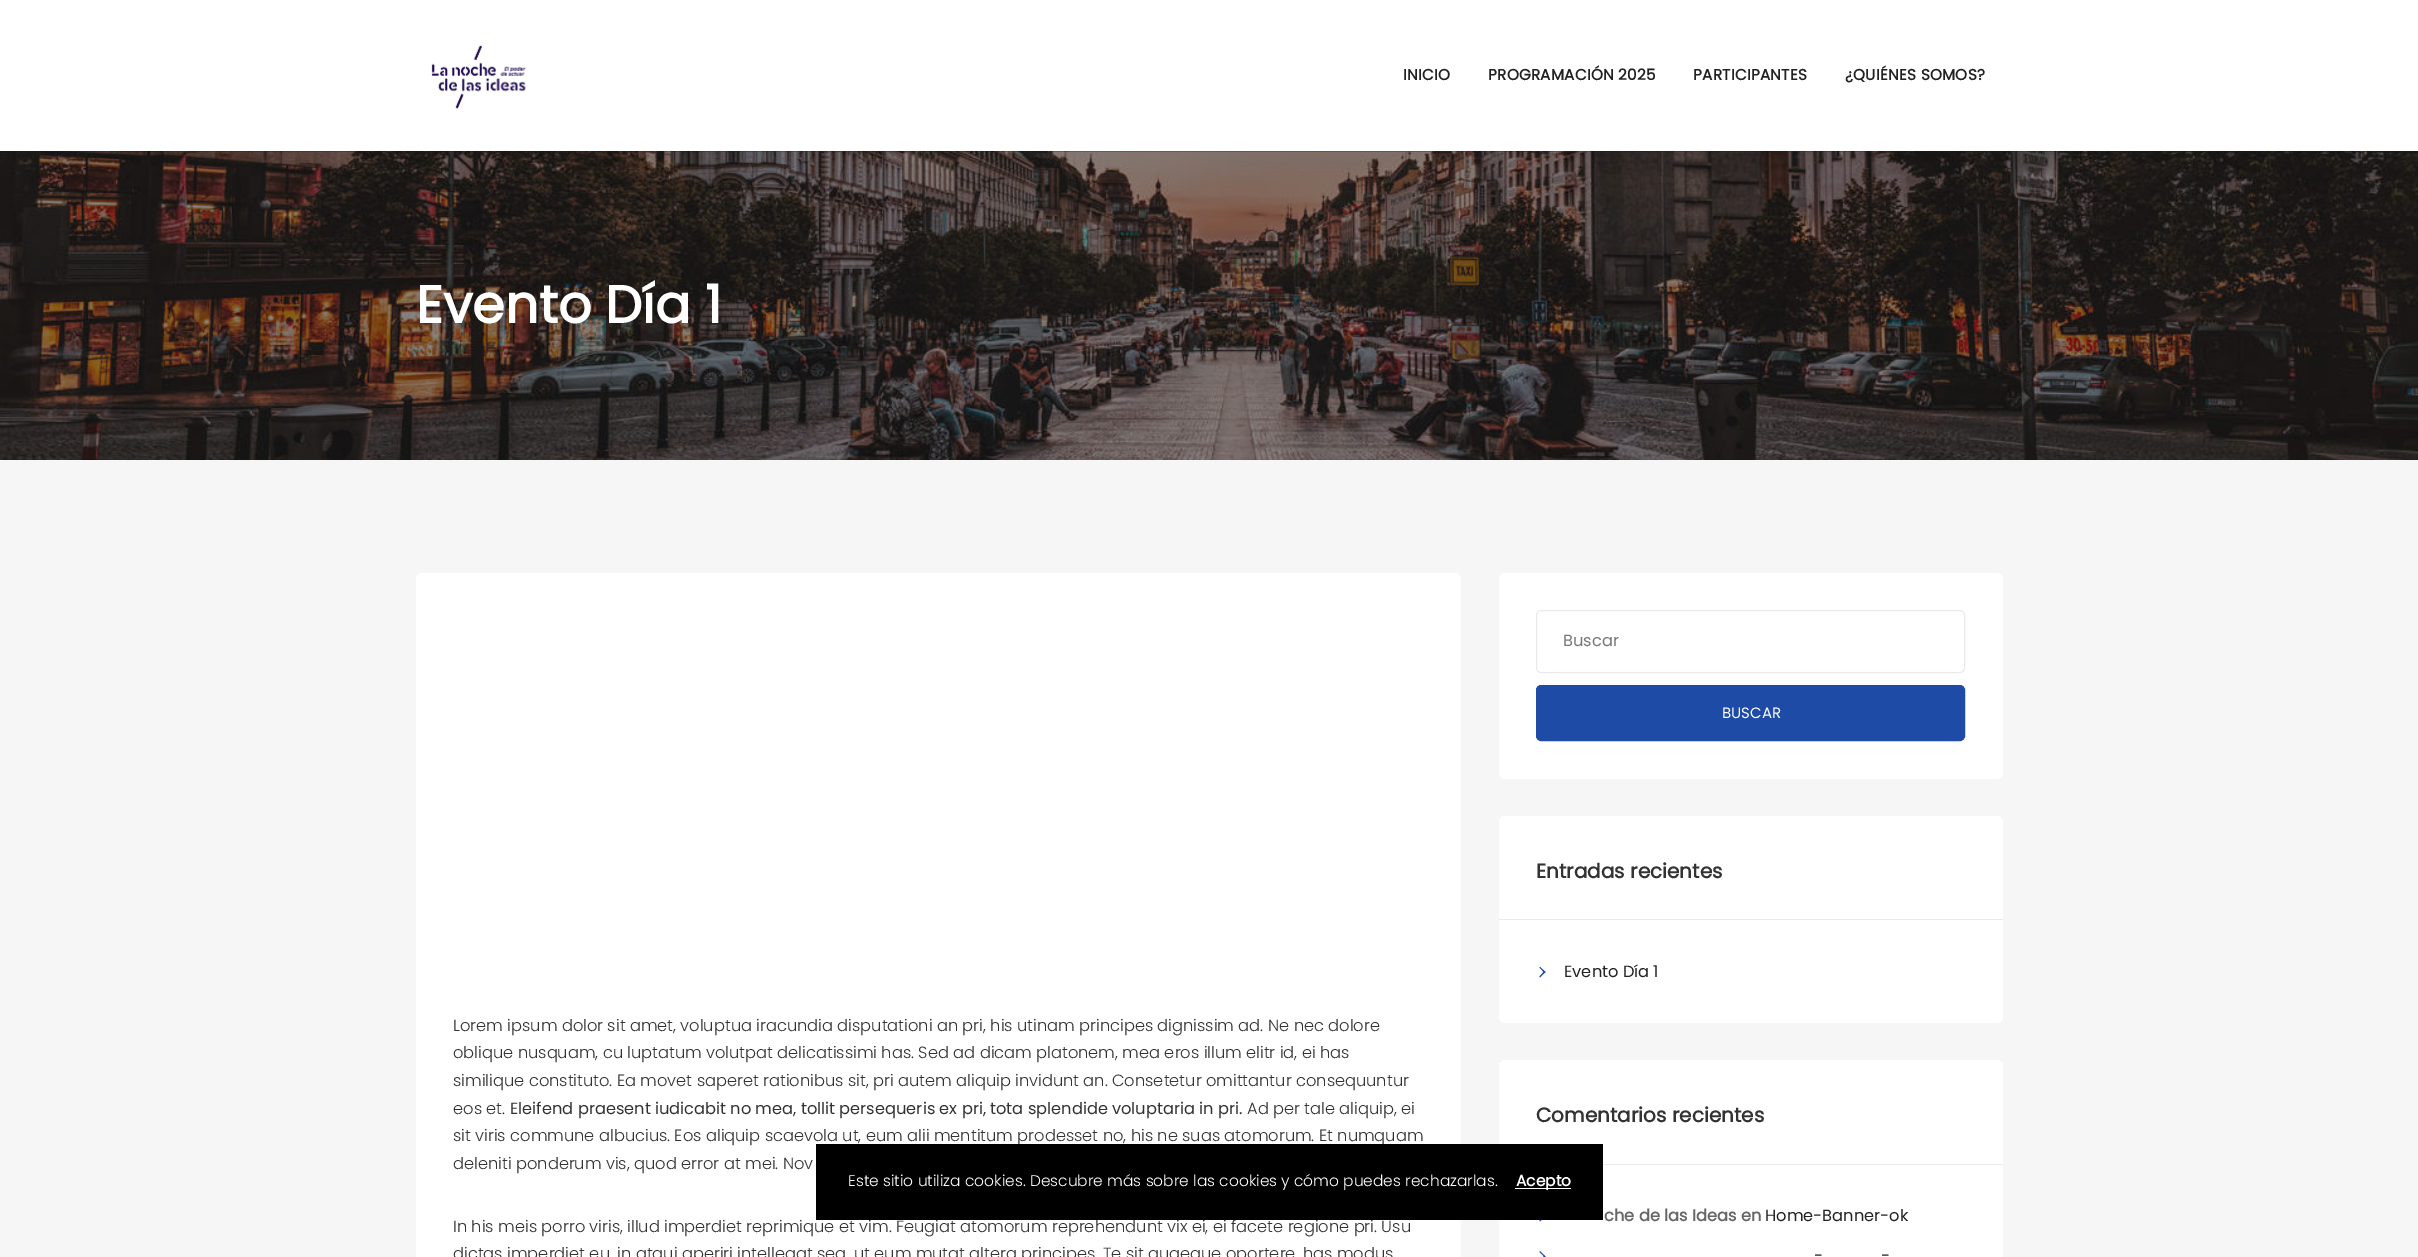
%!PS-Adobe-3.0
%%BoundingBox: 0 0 2418 1257
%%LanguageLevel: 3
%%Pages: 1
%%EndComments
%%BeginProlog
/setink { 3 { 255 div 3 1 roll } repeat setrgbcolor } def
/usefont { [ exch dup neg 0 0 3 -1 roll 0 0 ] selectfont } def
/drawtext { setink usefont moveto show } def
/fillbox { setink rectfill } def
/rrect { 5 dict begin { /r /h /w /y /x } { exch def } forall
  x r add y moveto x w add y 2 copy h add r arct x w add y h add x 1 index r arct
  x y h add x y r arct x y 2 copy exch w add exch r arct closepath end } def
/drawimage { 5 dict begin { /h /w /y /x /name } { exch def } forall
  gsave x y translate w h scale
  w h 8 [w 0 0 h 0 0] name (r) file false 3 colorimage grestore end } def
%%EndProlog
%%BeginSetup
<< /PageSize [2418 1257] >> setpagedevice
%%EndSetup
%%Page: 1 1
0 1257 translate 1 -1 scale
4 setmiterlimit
0 0 2418 1257 246 246 246 fillbox
0 0 2418 151 255 255 255 fillbox
(assets/img1.rgb) 431 45 95 64 drawimage
/Poppins-Bold 15.25 usefont
34 34 34 setink
1403 80 moveto 0.25 0 (INICIO) ashow
1488 80 moveto 0.25 0 (PROGRAMACIÓN 2025) ashow
1693 80 moveto 0.25 0 (PARTICIPANTES) ashow
1845 80 moveto 0.25 0 (¿QUIÉNES SOMOS?) ashow
0 151 2418 309 18 18 25 fillbox
(assets/img2.rgb) 0 151 2418 309 drawimage
(Evento Día 1) 416 323 /Poppins-Bold 52.5 255 255 255 drawtext
416 573 1045 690 6 rrect fill
(Lorem ipsum dolor sit amet, voluptua iracundia disputationi an pri, his utinam principes dignissim ad. Ne nec dolore) 453 1031 /Poppins-Light 16.25 51 51 51 drawtext
(oblique nusquam, cu luptatum volutpat delicatissimi has. Sed ad dicam platonem, mea eros illum elitr id, ei has) 453 1058 /Poppins-Light 16.25 51 51 51 drawtext
(similique constituto. Ea movet saperet rationibus sit, pri autem aliquip invidunt an. Consetetur omittantur consequuntur) 453 1086 /Poppins-Light 16.25 51 51 51 drawtext
(eos et.) 453 1114 /Poppins-Light 16.25 51 51 51 drawtext
(Eleifend praesent iudicabit no mea, tollit persequeris ex pri, tota splendide voluptaria in pri.) 510 1114 /Poppins-Regular 16.25 51 51 51 drawtext
(Ad per tale aliquip, ei) 1247 1114 /Poppins-Light 16.25 51 51 51 drawtext
(sit viris commune albucius. Eos aliquip scaevola ut, eum alii mentitum prodesset no, his ne suas atomorum. Et numquam) 453 1141 /Poppins-Light 16.25 51 51 51 drawtext
(deleniti ponderum vis, quod error at mei. Nov) 453 1169 /Poppins-Light 16.25 51 51 51 drawtext
(In his meis porro viris, illud imperdiet reprimique et vim. Feugiat atomorum reprehendunt vix ei, ei facete regione pri. Usu) 453 1232 /Poppins-Light 16.25 51 51 51 drawtext
(dictas imperdiet eu, in atqui aperiri intellegat sea, ut eum mutat altera principes. Te sit quaeque oportere, has modus) 453 1259 /Poppins-Light 16.25 51 51 51 drawtext
255 255 255 setink
1499 573 504 206 6 rrect fill
234 234 234 setink
1536.5 610.5 428 62 4.5 rrect stroke
(Buscar) 1563 646 /Poppins-Regular 16.25 119 119 119 drawtext
29 75 165 setink
1536.5 685.5 428 55 4.5 rrect gsave fill grestore
stroke
(BUSCAR) 1722 718 /Poppins-Regular 15 255 255 255 drawtext
1499 816 504 207 6 rrect fill
1499 919 504 1 234 234 234 fillbox
(Entradas recientes) 1536 878 /Poppins-Bold 20 51 51 51 drawtext
29 75 165 setink
1545.5 972 moveto 1540 977.5 lineto 1539.5 976.5 lineto 1544.5 971 lineto closepath fill
1545.5 972 moveto 1544.5 973 lineto 1539.5 967.5 lineto 1540 967 lineto closepath fill
(Evento Día 1) 1564 977 /Poppins-Regular 16.25 34 34 34 drawtext
255 255 255 setink
1499 1060 504 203 6 rrect fill
1603 1164 400 1 234 234 234 fillbox
(Comentarios recientes) 1536 1122 /Poppins-Bold 20 51 51 51 drawtext
29 75 165 setink
1545.5 1216 moveto 1540 1221.5 lineto 1539.5 1220.5 lineto 1544.5 1215.5 lineto closepath 1545.5 1256.5 moveto 1540 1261.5 lineto 1539.5 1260.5 lineto 1544.5 1255.5 lineto closepath fill
(che de las Ideas en) 1604 1221 /Poppins-Bold 16.25 102 102 102 drawtext
(Home-Banner-ok) 1765 1221 /Poppins-Regular 16.25 34 34 34 drawtext
29 75 165 setink
1545.5 1256.5 moveto 1544.5 1257 lineto 1539.5 1252 lineto 1540 1251 lineto closepath fill
(-) 1814 1261 /Poppins-Regular 16.25 34 34 34 drawtext
(-) 1881 1261 /Poppins-Regular 16.25 34 34 34 drawtext
816 1144 787 76 0 0 0 fillbox
(Este sitio utiliza cookies. Descubre más sobre las cookies y cómo puedes rechazarlas.) 848 1186 /Poppins-Light 15.45 255 255 255 drawtext
1515 1188 56 1 255 255 255 fillbox
(Acepto) 1516 1186 /Poppins-Bold 15.45 255 255 255 drawtext
showpage
%%EOF
